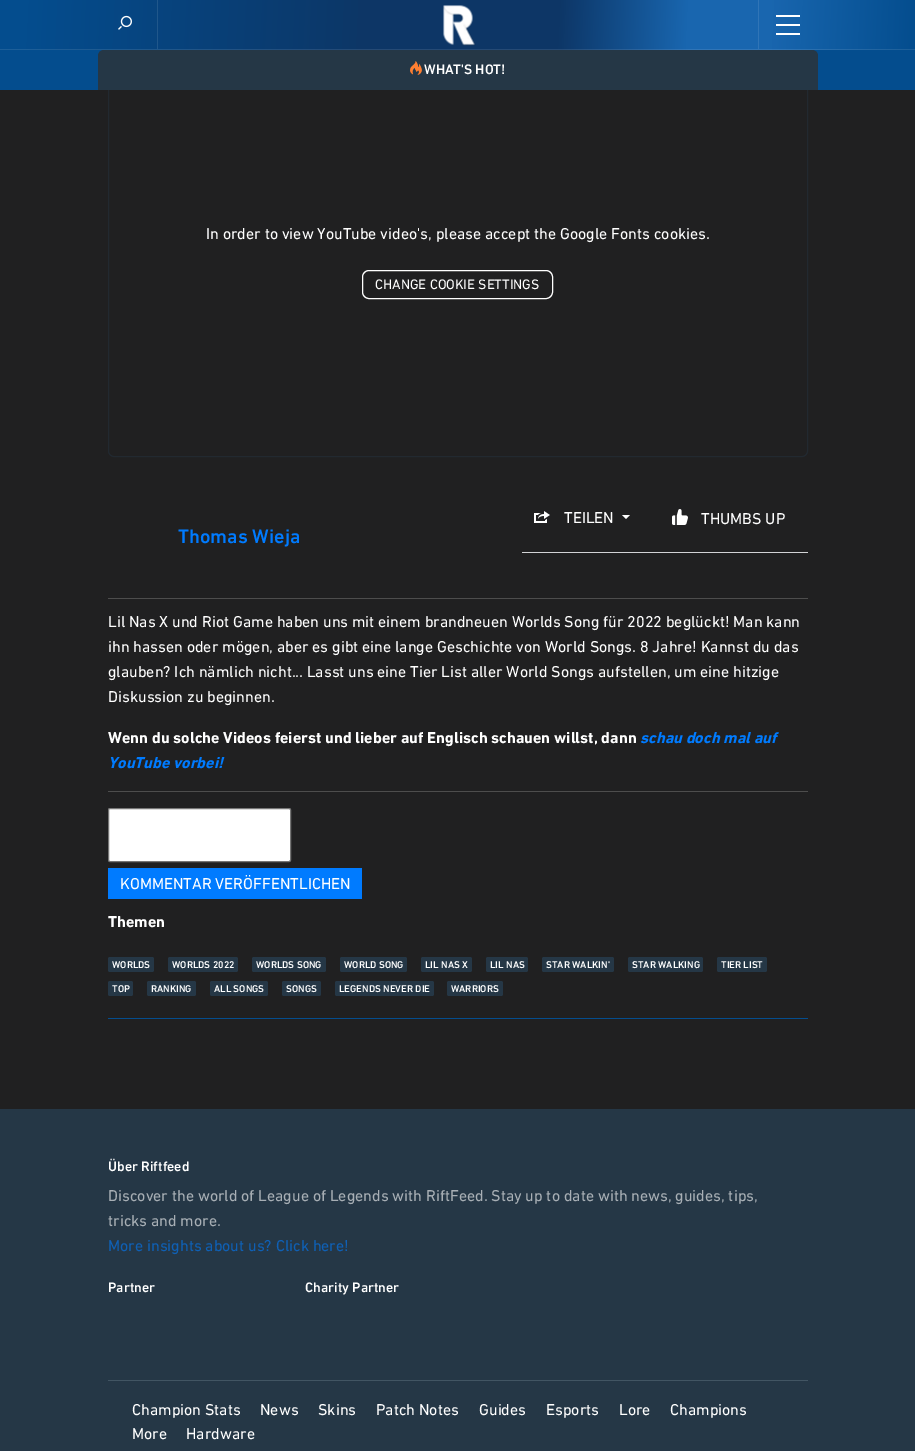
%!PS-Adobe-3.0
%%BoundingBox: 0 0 915 1451
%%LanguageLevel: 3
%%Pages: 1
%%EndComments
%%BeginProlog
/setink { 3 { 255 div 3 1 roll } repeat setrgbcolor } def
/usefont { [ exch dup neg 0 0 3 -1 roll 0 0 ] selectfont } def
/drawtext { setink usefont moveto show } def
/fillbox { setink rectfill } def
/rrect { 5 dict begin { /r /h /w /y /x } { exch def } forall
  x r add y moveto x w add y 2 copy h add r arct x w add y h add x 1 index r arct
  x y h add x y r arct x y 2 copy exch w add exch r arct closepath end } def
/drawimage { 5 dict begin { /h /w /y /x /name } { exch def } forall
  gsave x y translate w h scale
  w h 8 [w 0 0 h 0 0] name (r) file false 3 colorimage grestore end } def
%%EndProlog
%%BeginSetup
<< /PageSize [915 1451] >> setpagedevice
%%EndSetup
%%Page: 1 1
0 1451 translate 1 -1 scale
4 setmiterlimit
0 0 915 1451 32 32 33 fillbox
34 41 48 setink
108.5 63.5 699 393 5.5 rrect stroke
0 50 915 40 4 77 142 fillbox
gsave 0 0 moveto 915 0 lineto 915 49 lineto 0 49 lineto closepath clip newpath
<< /ShadingType 2 /ColorSpace /DeviceRGB /Coords [0 0.5 915 48] /Extend [true true] /Function << /FunctionType 3 /Domain [0 1] /Functions [<< /FunctionType 2 /Domain [0 1] /C0 [0.016 0.302 0.557] /C1 [0.016 0.302 0.557] /N 1 >> << /FunctionType 2 /Domain [0 1] /C0 [0.016 0.302 0.557] /C1 [0.051 0.212 0.4] /N 1 >> << /FunctionType 2 /Domain [0 1] /C0 [0.051 0.212 0.4] /C1 [0.051 0.212 0.4] /N 1 >> << /FunctionType 2 /Domain [0 1] /C0 [0.051 0.212 0.4] /C1 [0.098 0.4 0.686] /N 1 >> << /FunctionType 2 /Domain [0 1] /C0 [0.098 0.4 0.686] /C1 [0.098 0.4 0.686] /N 1 >> << /FunctionType 2 /Domain [0 1] /C0 [0.098 0.4 0.686] /C1 [0.016 0.302 0.557] /N 1 >>] /Bounds [0.03 0.4 0.61 0.75 0.84] /Encode [0 1 0 1 0 1 0 1 0 1 0 1] >> >> shfill grestore
gsave 0 49 moveto 915 49 lineto 915 50 lineto 0 50 lineto closepath clip newpath
<< /ShadingType 2 /ColorSpace /DeviceRGB /Coords [0 50 915 97] /Extend [true true] /Function << /FunctionType 3 /Domain [0 1] /Functions [<< /FunctionType 2 /Domain [0 1] /C0 [0.114 0.373 0.6] /C1 [0.114 0.373 0.6] /N 1 >> << /FunctionType 2 /Domain [0 1] /C0 [0.114 0.373 0.6] /C1 [0.145 0.29 0.459] /N 1 >> << /FunctionType 2 /Domain [0 1] /C0 [0.145 0.29 0.459] /C1 [0.145 0.29 0.459] /N 1 >> << /FunctionType 2 /Domain [0 1] /C0 [0.145 0.29 0.459] /C1 [0.188 0.459 0.718] /N 1 >> << /FunctionType 2 /Domain [0 1] /C0 [0.188 0.459 0.718] /C1 [0.188 0.459 0.718] /N 1 >> << /FunctionType 2 /Domain [0 1] /C0 [0.188 0.459 0.718] /C1 [0.114 0.373 0.6] /N 1 >>] /Bounds [0.03 0.4 0.61 0.75 0.84] /Encode [0 1 0 1 0 1 0 1 0 1 0 1] >> >> shfill grestore
157 0 1 49 32 87 139 fillbox
(assets/img1.rgb) 118 15 14 15 drawimage
(assets/img2.rgb) 443 5 33 41 drawimage
758 0 1 49 48 117 183 fillbox
776 15 24 2 255 255 255 fillbox
776 24 24 2 255 255 255 fillbox
776 33 24 2 255 255 255 fillbox
37 55 70 setink
104 50 moveto 812 50 lineto 815.5 50 818 52.5 818 56 curveto 818 90 lineto 98 90 lineto 98 56 lineto 98 52.5 100.5 50 104 50 curveto closepath fill
(assets/img3.rgb) 410 61 12 14 drawimage
(WHAT'S HOT!) 424 74 /DINNext-Medium 14 255 255 255 drawtext
(In order to view YouTube video's, please accept the Google Fonts cookies.) 206 239 /DINNext-Regular 16 255 255 255 drawtext
362.5 270.5 190 28 6.5 rrect stroke
(CHANGE COOKIE SETTINGS) 375 289 /DINNext-Regular 14 255 255 255 drawtext
522 552 286 1 210 211 214 fillbox
(assets/img4.rgb) 534 511 16 12 drawimage
(TEILEN) 564 523 /DINNext-Regular 16 255 255 255 drawtext
622 515 moveto 630 515 lineto 626 519 lineto closepath fill
(assets/img5.rgb) 672 509 16 16 drawimage
(THUMBS UP) 701 524 /DINNext-Regular 16 255 255 255 drawtext
(Thomas Wieja) 178 543 /DINNext-Medium 20 0 123 255 drawtext
108 598 700 1 77 77 77 fillbox
(Lil Nas X und Riot Game haben uns mit einem brandneuen Worlds Song für 2022 beglückt! Man kann) 108 627 /DINNext-Regular 16 255 255 255 drawtext
(ihn hassen oder mögen, aber es gibt eine lange Geschichte von World Songs. 8 Jahre! Kannst du das) 108 652 /DINNext-Regular 16 255 255 255 drawtext
(glauben? Ich nämlich nicht... Lasst uns eine Tier List aller World Songs aufstellen, um eine hitzige) 108 677 /DINNext-Regular 16 255 255 255 drawtext
(Diskussion zu beginnen.) 108 702 /DINNext-Regular 16 255 255 255 drawtext
(Wenn du solche Videos feierst und lieber auf Englisch schauen willst, dann) 108 743 /DINNext-Bold 16 255 255 255 drawtext
(schau doch mal auf) 640 743 /DINNext-BoldItalic 16 0 123 255 drawtext
(YouTube vorbei!) 108 768 /DINNext-BoldItalic 16 0 123 255 drawtext
108 791 700 1 77 77 77 fillbox
255 255 255 setink
108.5 808.5 182 53 1.5 rrect gsave fill grestore
118 118 118 setink
stroke
108 868 254 31 0 123 255 fillbox
(KOMMENTAR VERÖFFENTLICHEN) 120 889 /DINNext-Regular 16 255 255 255 drawtext
108 1018 700 1 4 77 142 fillbox
(Themen) 108 927 /DINNext-Bold 16 255 255 255 drawtext
37 55 70 setink
108 957 46 15 2 rrect fill
(WORLDS) 112 968 /DINNext-Medium 10 255 255 255 drawtext
37 55 70 setink
168 957 70 15 2 rrect fill
(WORLDS 2022) 172 968 /DINNext-Medium 10 255 255 255 drawtext
37 55 70 setink
252 957 74 15 2 rrect fill
(WORLDS SONG) 256 968 /DINNext-Medium 10 255 255 255 drawtext
37 55 70 setink
340 957 67 15 2 rrect fill
(WORLD SONG) 344 968 /DINNext-Medium 10 255 255 255 drawtext
37 55 70 setink
421 957 51 15 2 rrect fill
(LIL NAS X) 425 968 /DINNext-Medium 10 255 255 255 drawtext
37 55 70 setink
486 957 42 15 2 rrect fill
(LIL NAS) 490 968 /DINNext-Medium 10 255 255 255 drawtext
37 55 70 setink
542 957 72 15 2 rrect fill
(STAR WALKIN') 546 968 /DINNext-Medium 10 255 255 255 drawtext
37 55 70 setink
628 957 75 15 2 rrect fill
(STAR WALKING) 632 968 /DINNext-Medium 10 255 255 255 drawtext
37 55 70 setink
717 957 50 15 2 rrect fill
(TIER LIST) 721 968 /DINNext-Medium 10 255 255 255 drawtext
37 55 70 setink
108 981 25 15 2 rrect fill
(TOP) 112 992 /DINNext-Medium 10 255 255 255 drawtext
37 55 70 setink
147 981 49 15 2 rrect fill
(RANKING) 151 992 /DINNext-Medium 10 255 255 255 drawtext
37 55 70 setink
210 981 58 15 2 rrect fill
(ALL SONGS) 214 992 /DINNext-Medium 10 255 255 255 drawtext
37 55 70 setink
282 981 39 15 2 rrect fill
(SONGS) 286 992 /DINNext-Medium 10 255 255 255 drawtext
37 55 70 setink
335 981 99 15 2 rrect fill
(LEGENDS NEVER DIE) 339 992 /DINNext-Medium 10 255 255 255 drawtext
37 55 70 setink
447 981 56 15 2 rrect fill
(WARRIORS) 451 992 /DINNext-Medium 10 255 255 255 drawtext
0 1109 915 342 37 55 70 fillbox
(Über Riftfeed) 108 1171 /DINNext-Medium 14 255 255 255 drawtext
(Discover the world of League of Legends with RiftFeed. Stay up to date with news, guides, tips,) 108 1201 /DINNext-Regular 16 168 175 181 drawtext
(tricks and more.) 108 1226 /DINNext-Regular 16 168 175 181 drawtext
(More insights about us? Click here!) 108 1251 /DINNext-Regular 16 15 96 181 drawtext
(Partner) 108 1292 /DINNext-Medium 14 255 255 255 drawtext
(Charity Partner) 305 1292 /DINNext-Medium 14 255 255 255 drawtext
108 1380 700 1 66 85 99 fillbox
(Champion Stats) 132 1415 /DINNext-Regular 16 255 255 255 drawtext
(News) 260 1415 /DINNext-Regular 16 255 255 255 drawtext
(Skins) 318 1415 /DINNext-Regular 16 255 255 255 drawtext
(Patch Notes) 376 1415 /DINNext-Regular 16 255 255 255 drawtext
(Guides) 479 1415 /DINNext-Regular 16 255 255 255 drawtext
(Esports) 546 1415 /DINNext-Regular 16 255 255 255 drawtext
(Lore) 619 1415 /DINNext-Regular 16 255 255 255 drawtext
(Champions) 670 1415 /DINNext-Regular 16 255 255 255 drawtext
(More) 132 1439 /DINNext-Regular 16 255 255 255 drawtext
(Hardware) 186 1439 /DINNext-Regular 16 255 255 255 drawtext
showpage
%%EOF
